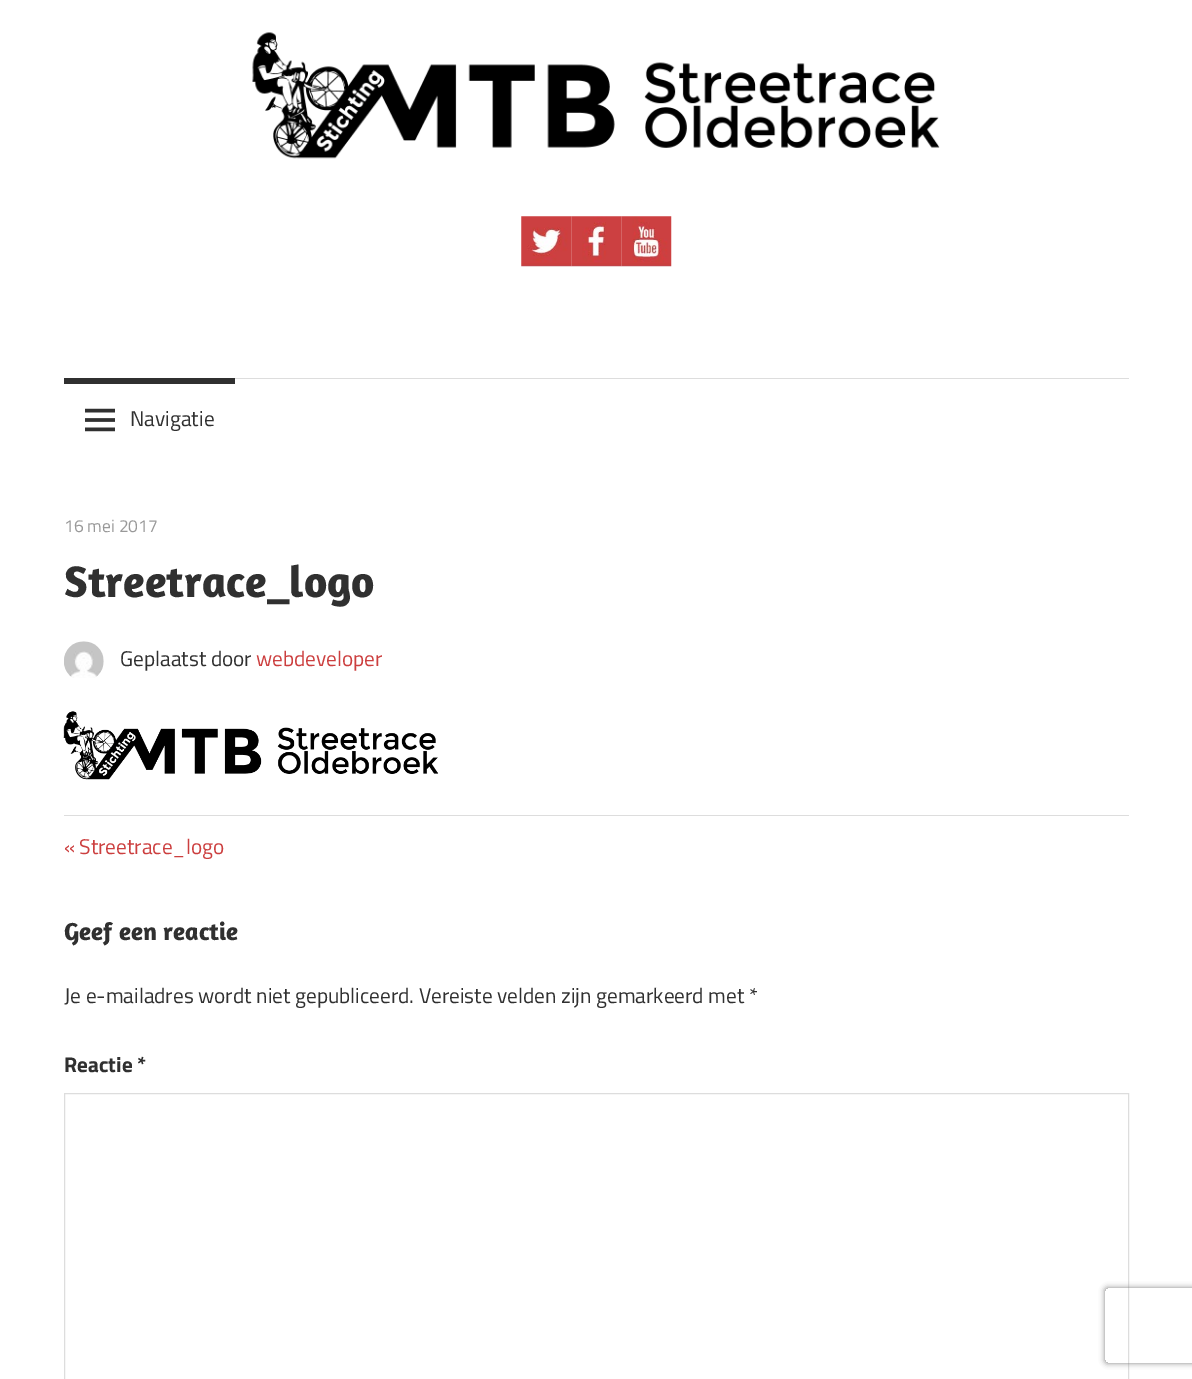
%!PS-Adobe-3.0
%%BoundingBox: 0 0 1192 1379
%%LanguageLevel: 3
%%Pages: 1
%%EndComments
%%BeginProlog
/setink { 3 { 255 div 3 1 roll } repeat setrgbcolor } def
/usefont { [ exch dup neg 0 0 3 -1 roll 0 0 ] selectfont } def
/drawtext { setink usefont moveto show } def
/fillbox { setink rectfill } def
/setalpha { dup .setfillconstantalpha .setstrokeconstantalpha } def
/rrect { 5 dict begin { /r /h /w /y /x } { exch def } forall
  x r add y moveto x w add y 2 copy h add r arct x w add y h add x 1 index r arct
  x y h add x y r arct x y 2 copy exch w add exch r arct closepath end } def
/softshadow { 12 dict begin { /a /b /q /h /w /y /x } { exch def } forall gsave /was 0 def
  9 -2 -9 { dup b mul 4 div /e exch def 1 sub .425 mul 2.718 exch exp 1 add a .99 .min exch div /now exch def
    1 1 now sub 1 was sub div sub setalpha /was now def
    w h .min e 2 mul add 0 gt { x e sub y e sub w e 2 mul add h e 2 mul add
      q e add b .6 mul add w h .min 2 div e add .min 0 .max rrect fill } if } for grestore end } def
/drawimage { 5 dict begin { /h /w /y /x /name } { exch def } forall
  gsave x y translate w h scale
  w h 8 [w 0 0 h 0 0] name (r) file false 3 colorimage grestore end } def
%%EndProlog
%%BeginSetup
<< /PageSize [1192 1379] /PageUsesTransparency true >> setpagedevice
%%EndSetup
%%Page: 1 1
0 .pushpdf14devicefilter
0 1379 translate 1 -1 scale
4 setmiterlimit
0 0 1192 1379 255 255 255 fillbox
(assets/img1.rgb) 252 32 688 127 drawimage
(assets/img2.rgb) 521 216 51 51 drawimage
(assets/img3.rgb) 571 216 51 51 drawimage
(assets/img4.rgb) 621 216 51 51 drawimage
235 378 894 1 221 221 221 fillbox
64 378 171 6 48 48 48 fillbox
(assets/img5.rgb) 85 408 30 24 drawimage
(Navigatie) 130 426 /TitilliumWeb-Regular 21.25 48 48 48 drawtext
(16 mei 2017) 64 532 /TitilliumWeb-Regular 17.5 153 153 153 drawtext
(Streetrace_logo) 64 597 /Amaranth-Bold 45 48 48 48 drawtext
(assets/img6.rgb) 64 641 40 37 drawimage
(Geplaatst door) 120 666 /TitilliumWeb-Regular 21.25 48 48 48 drawtext
(webdeveloper) 256 666 /TitilliumWeb-Regular 21.25 204 63 63 drawtext
(assets/img7.rgb) 63 711 376 69 drawimage
64 815 1065 1 221 221 221 fillbox
(«) 64 854 /TitilliumWeb-Regular 21.25 204 63 63 drawtext
(Streetrace_logo) 79 854 /TitilliumWeb-Regular 21.25 204 63 63 drawtext
(Geef een reactie) 64 940 /Amaranth-Bold 25 48 48 48 drawtext
(Je e-mailadres wordt niet gepubliceerd. Vereiste velden zijn gemarkeerd met *) 64 1003 /TitilliumWeb-Regular 21.25 48 48 48 drawtext
(Reactie *) 64 1072 /TitilliumWeb-Bold 21.25 48 48 48 drawtext
221 221 221 setink
64.5 1093.5 1064 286 rectstroke
gsave
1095 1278 moveto 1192 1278 lineto 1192 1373 lineto 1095 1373 lineto closepath 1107.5 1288 moveto 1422.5 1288 lineto 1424 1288 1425 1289 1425 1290.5 curveto 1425 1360.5 lineto 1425 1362 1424 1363 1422.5 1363 curveto 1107.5 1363 lineto 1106 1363 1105 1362 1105 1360.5 curveto 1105 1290.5 lineto 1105 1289 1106 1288 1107.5 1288 curveto closepath eoclip newpath
128 128 128 setink
1105 1288 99 75 2.5 3 1 softshadow
grestore
.poppdf14devicefilter showpage
%%EOF
